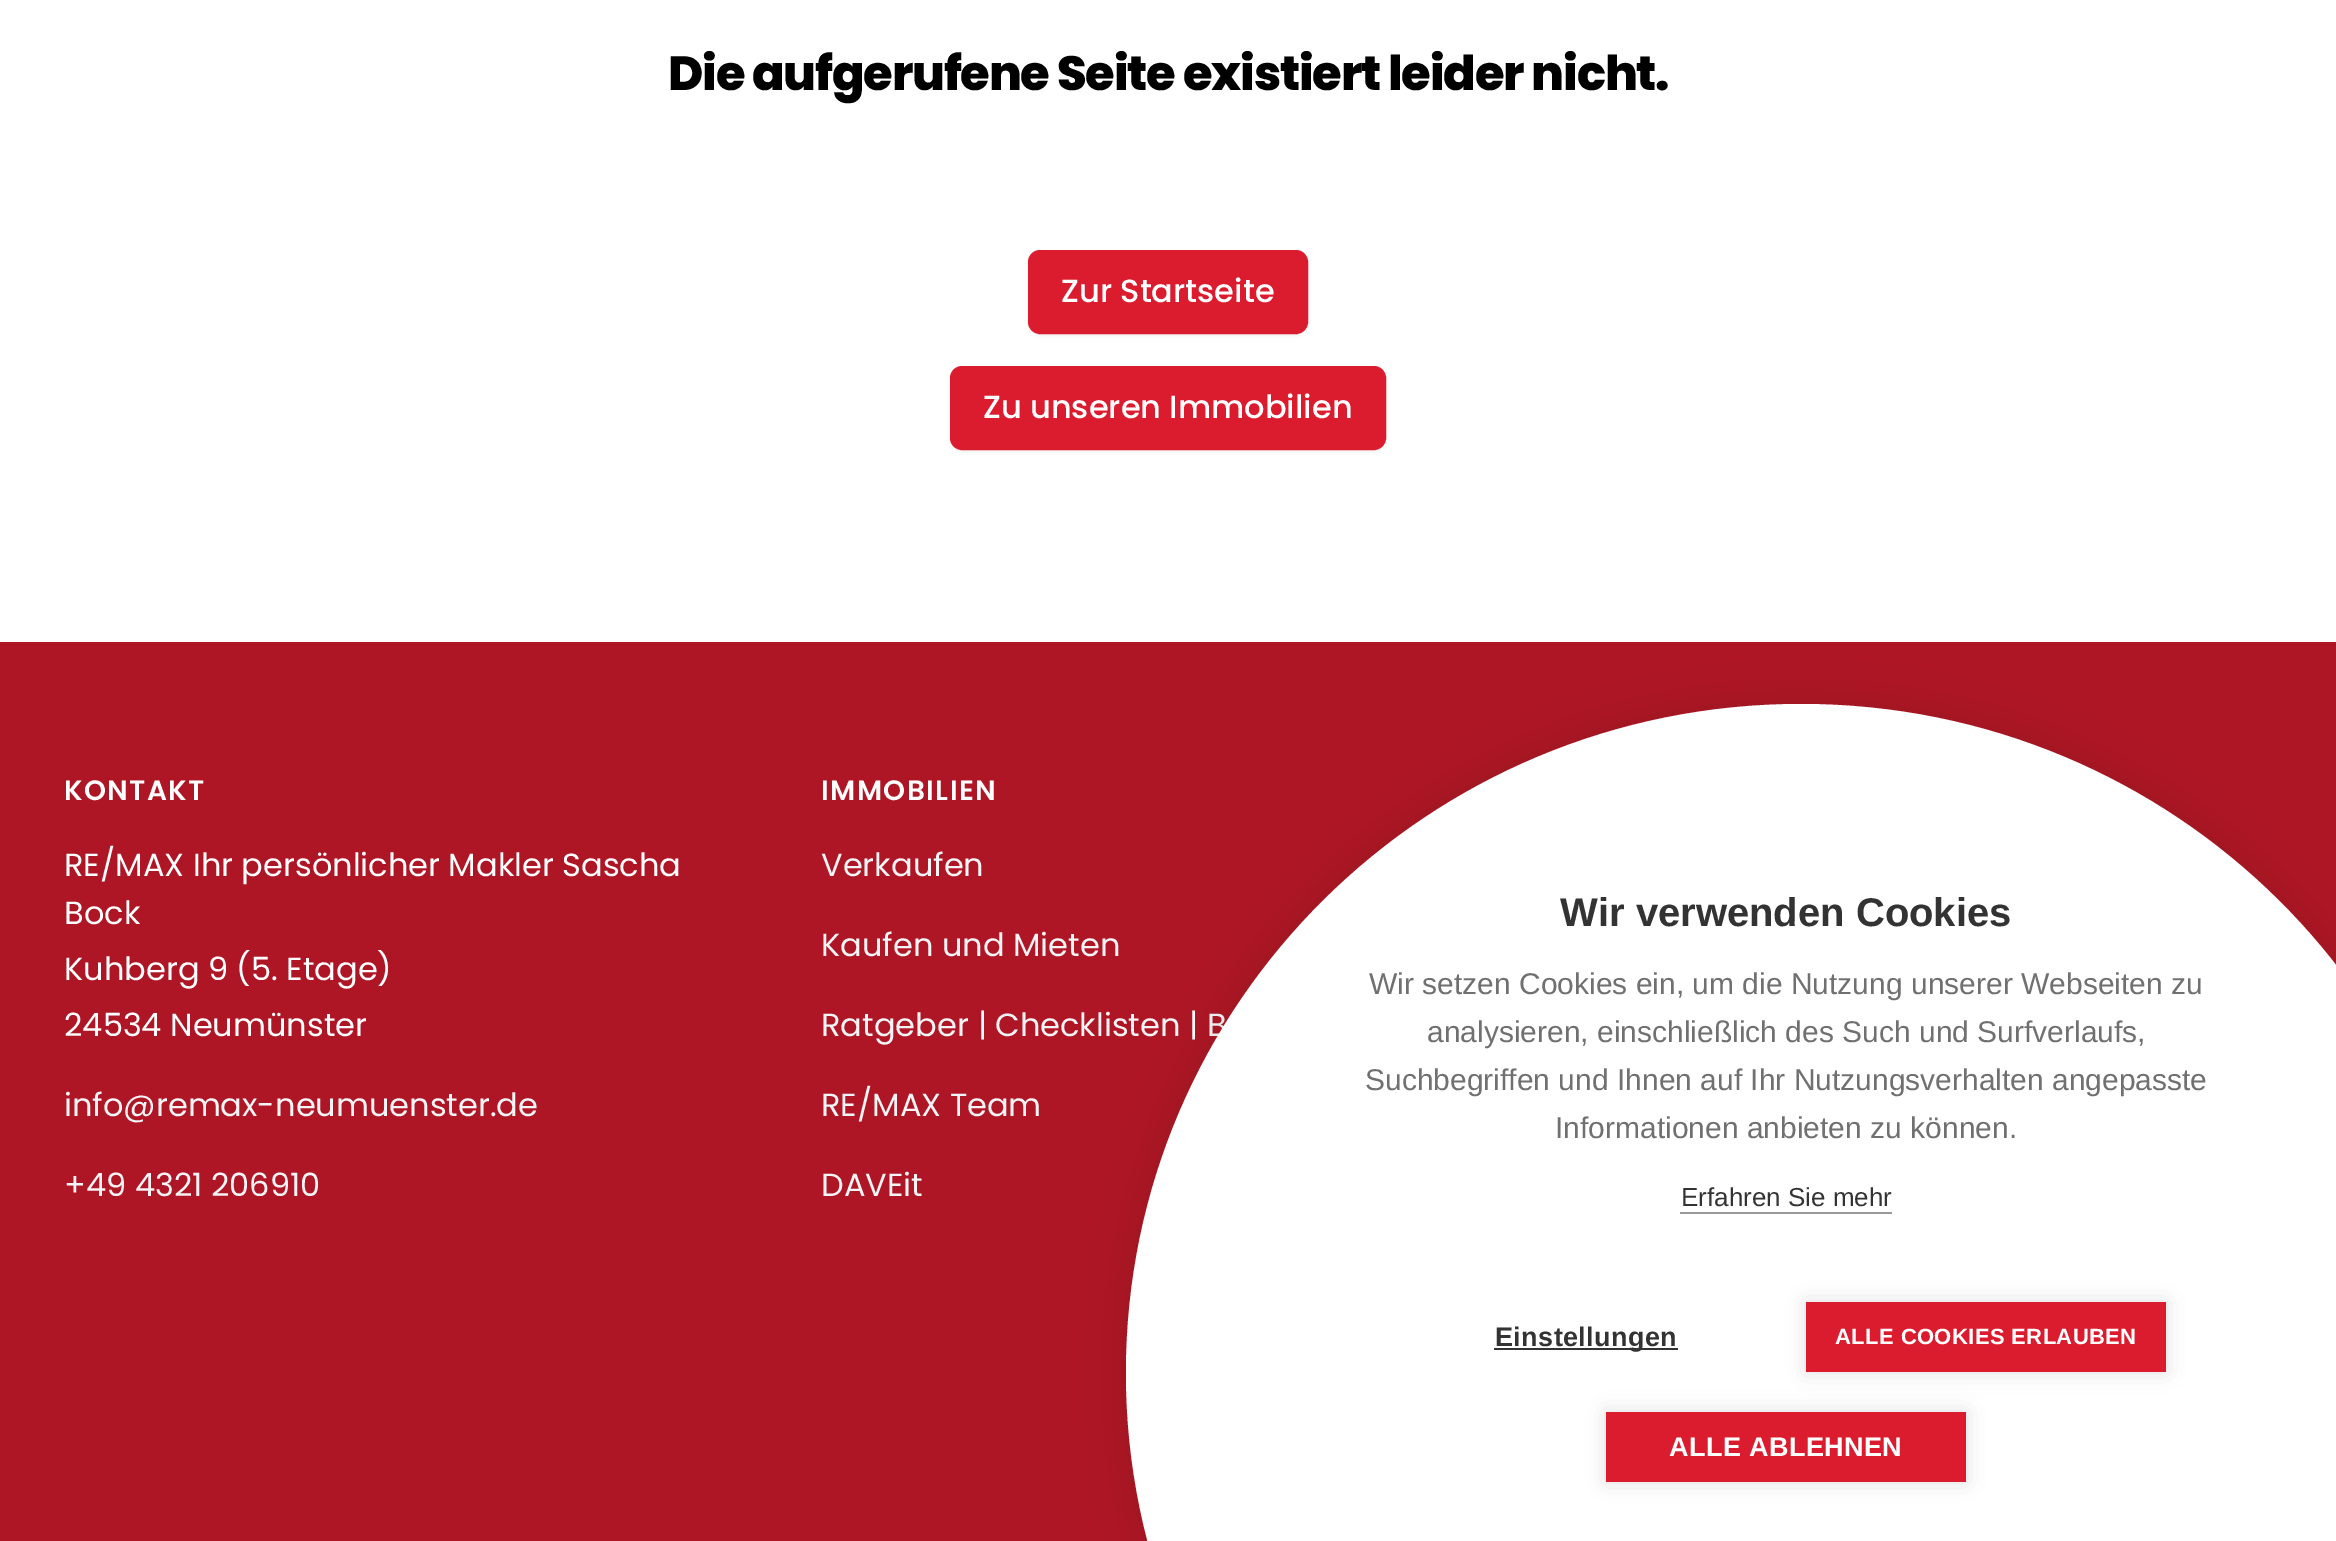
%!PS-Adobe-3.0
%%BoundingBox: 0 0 2336 1541
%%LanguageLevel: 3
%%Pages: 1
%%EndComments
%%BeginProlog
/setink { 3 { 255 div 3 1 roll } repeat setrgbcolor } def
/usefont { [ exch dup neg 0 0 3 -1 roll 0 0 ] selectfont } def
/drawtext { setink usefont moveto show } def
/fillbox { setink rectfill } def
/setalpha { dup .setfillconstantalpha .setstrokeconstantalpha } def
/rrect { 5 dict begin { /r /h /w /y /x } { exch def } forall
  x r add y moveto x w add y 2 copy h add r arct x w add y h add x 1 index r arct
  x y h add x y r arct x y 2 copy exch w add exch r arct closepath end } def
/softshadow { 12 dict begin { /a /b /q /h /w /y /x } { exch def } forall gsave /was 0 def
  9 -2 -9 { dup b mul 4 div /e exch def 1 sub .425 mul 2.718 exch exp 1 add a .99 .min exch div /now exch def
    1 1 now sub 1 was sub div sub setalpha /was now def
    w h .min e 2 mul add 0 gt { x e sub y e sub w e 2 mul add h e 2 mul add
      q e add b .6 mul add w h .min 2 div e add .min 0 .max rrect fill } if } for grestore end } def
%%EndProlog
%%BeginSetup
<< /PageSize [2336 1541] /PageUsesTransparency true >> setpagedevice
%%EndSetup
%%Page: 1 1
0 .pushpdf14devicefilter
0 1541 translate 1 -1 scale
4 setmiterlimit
0 0 2336 1541 255 255 255 fillbox
/Poppins-ExtraBold 48 usefont
0 0 0 setink
668 90 moveto -1.2 0 (Die aufgerufene Seite existiert leider nicht.) ashow
1028 252 280 84 12 2 0.05 softshadow
219 28 46 setink
1029 251 278 82 11 rrect gsave fill grestore
2 setlinewidth
stroke
(Zur Startseite) 1061 302 /Poppins-Medium 32 255 255 255 drawtext
0 0 0 setink
950 368 436 84 12 2 0.05 softshadow
219 28 46 setink
951 367 434 82 11 rrect gsave fill grestore
stroke
(Zu unseren Immobilien) 983 418 /Poppins-Medium 32 255 255 255 drawtext
0 642 2336 899 174 22 37 fillbox
/Poppins-SemiBold 28 usefont
255 255 255 setink
64 800 moveto 1.4 0 (KONTAKT) ashow
(RE/MAX Ihr persönlicher Makler Sascha) 64 876 /Poppins-Regular 32 255 255 255 drawtext
(Bock) 64 924 /Poppins-Regular 32 255 255 255 drawtext
(Kuhberg 9 \(5. Etage\)) 64 980 /Poppins-Regular 32 255 255 255 drawtext
(24534 Neumünster) 64 1036 /Poppins-Regular 32 255 255 255 drawtext
(info@remax-neumuenster.de) 64 1116 /Poppins-Regular 32 243 244 246 drawtext
(+49 4321 206910) 64 1196 /Poppins-Regular 32 243 244 246 drawtext
/Poppins-SemiBold 28 usefont
255 255 255 setink
821 800 moveto 1.4 0 (IMMOBILIEN) ashow
(Verkaufen) 821 876 /Poppins-Regular 32 243 244 246 drawtext
(Kaufen und Mieten) 821 956 /Poppins-Regular 32 243 244 246 drawtext
(Ratgeber) 821 1036 /Poppins-Regular 32 243 244 246 drawtext
(|) 978 1036 /Poppins-Regular 32 255 255 255 drawtext
(Checklisten) 995 1036 /Poppins-Regular 32 243 244 246 drawtext
(|) 1189 1036 /Poppins-Regular 32 255 255 255 drawtext
(B) 1207 1036 /Poppins-Regular 32 243 244 246 drawtext
(RE/MAX Team) 821 1116 /Poppins-Regular 32 243 244 246 drawtext
(DAVEit) 821 1196 /Poppins-Regular 32 243 244 246 drawtext
0 0 0 setink
1126 704 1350 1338 669 20 0.1 softshadow
255 255 255 setink
1801 704 moveto 2174 704 2476 1003.5 2476 1373 curveto 2476 1742.5 2174 2042 1801 2042 curveto 1428 2042 1126 1742.5 1126 1373 curveto 1126 1003.5 1428 704 1801 704 curveto closepath fill
(Wir verwenden Cookies) 1560 926 /LiberationSans-Bold 40 51 51 51 drawtext
(Wir setzen Cookies ein, um die Nutzung unserer Webseiten zu) 1369 994 /LiberationSans-Regular 30 112 112 112 drawtext
(analysieren, einschließlich des Such und Surfverlaufs,) 1427 1042 /LiberationSans-Regular 30 112 112 112 drawtext
(Suchbegriffen und Ihnen auf Ihr Nutzungsverhalten angepasste) 1365 1090 /LiberationSans-Regular 30 112 112 112 drawtext
(Informationen anbieten zu können.) 1555 1138 /LiberationSans-Regular 30 112 112 112 drawtext
(Erfahren Sie mehr) 1681 1206 /LiberationSans-Regular 26 51 51 51 drawtext
1680 1212 212 2 153 153 153 fillbox
1494 1348 184 2 51 51 51 fillbox
/LiberationSans-Bold 27 usefont
1495 1346 moveto 0.4 0 (Einstellungen) ashow
0 0 0 setink
1806 1302 360 70 0 10 0.12 softshadow
1806 1302 360 70 219 28 46 fillbox
/LiberationSans-Bold 22 usefont
255 255 255 setink
1835 1344 moveto 0.4 0 (ALLE COOKIES ERLAUBEN) ashow
0 0 0 setink
1606 1412 360 70 0 10 0.12 softshadow
1606 1412 360 70 219 28 46 fillbox
/LiberationSans-Bold 27 usefont
255 255 255 setink
1669 1456 moveto 0.4 0 (ALLE ABLEHNEN) ashow
.poppdf14devicefilter showpage
%%EOF
